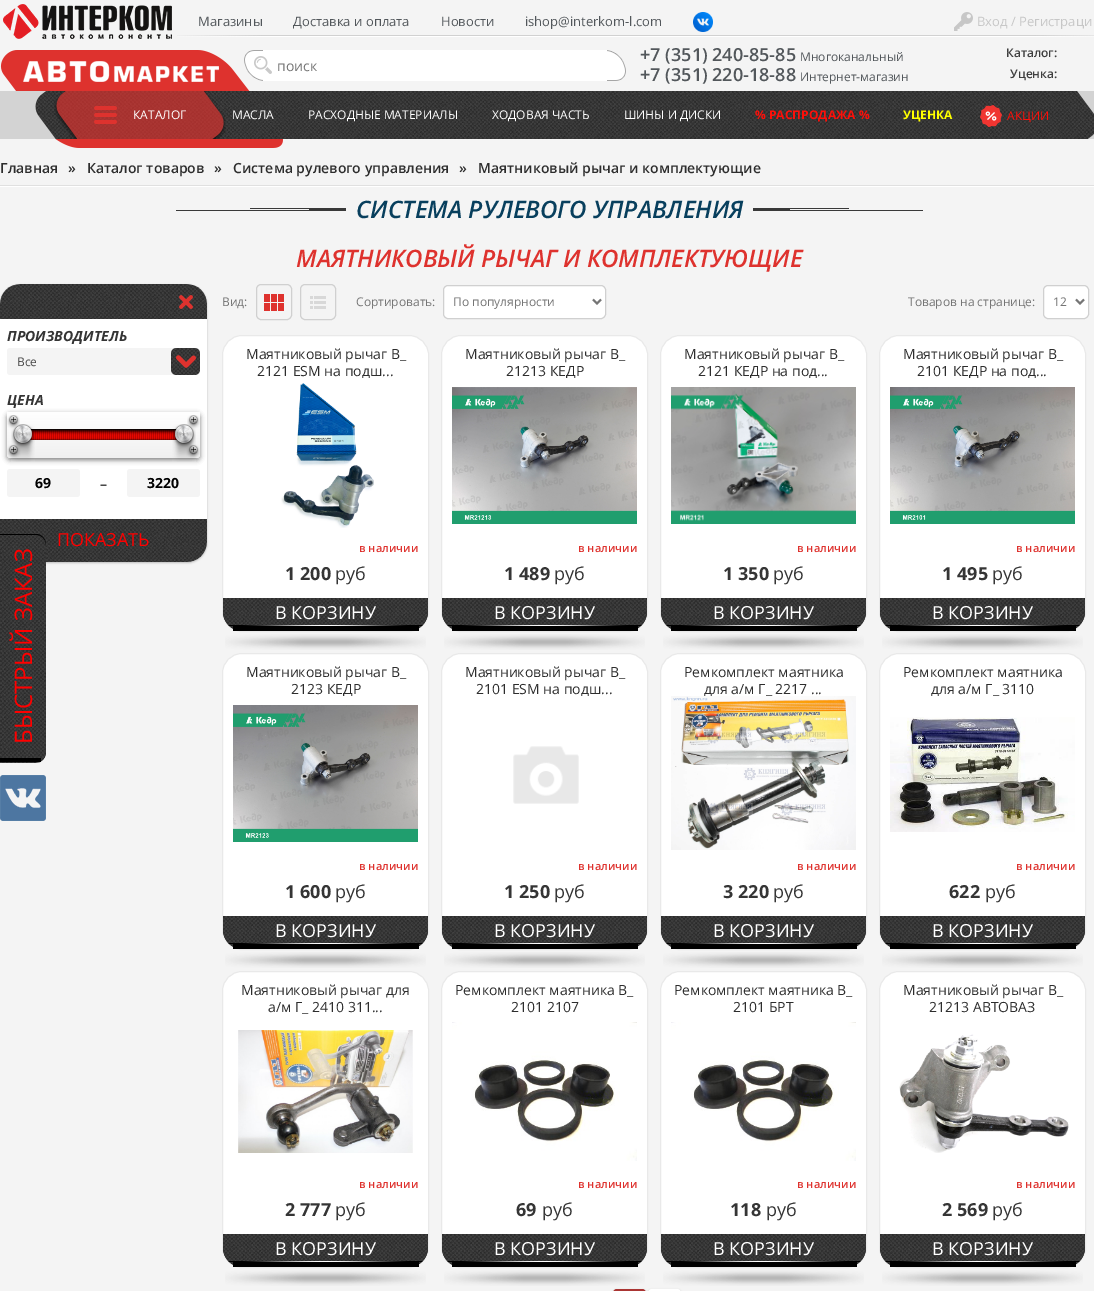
%!PS-Adobe-3.0
%%BoundingBox: 0 0 1094 1291
%%LanguageLevel: 3
%%Pages: 1
%%EndComments
%%BeginProlog
/setink { 3 { 255 div 3 1 roll } repeat setrgbcolor } def
/usefont { [ exch dup neg 0 0 3 -1 roll 0 0 ] selectfont } def
/drawtext { setink usefont moveto show } def
/fillbox { setink rectfill } def
/setalpha { dup .setfillconstantalpha .setstrokeconstantalpha } def
/rrect { 5 dict begin { /r /h /w /y /x } { exch def } forall
  x r add y moveto x w add y 2 copy h add r arct x w add y h add x 1 index r arct
  x y h add x y r arct x y 2 copy exch w add exch r arct closepath end } def
/softshadow { 12 dict begin { /a /b /q /h /w /y /x } { exch def } forall gsave /was 0 def
  9 -2 -9 { dup b mul 4 div /e exch def 1 sub .425 mul 2.718 exch exp 1 add a .99 .min exch div /now exch def
    1 1 now sub 1 was sub div sub setalpha /was now def
    w h .min e 2 mul add 0 gt { x e sub y e sub w e 2 mul add h e 2 mul add
      q e add b .6 mul add w h .min 2 div e add .min 0 .max rrect fill } if } for grestore end } def
/drawimage { 5 dict begin { /h /w /y /x /name } { exch def } forall
  gsave x y translate w h scale
  w h 8 [w 0 0 h 0 0] name (r) file false 3 colorimage grestore end } def
%%EndProlog
%%BeginSetup
<< /PageSize [1094 1291] /PageUsesTransparency true >> setpagedevice
%%EndSetup
%%Page: 1 1
0 .pushpdf14devicefilter
0 1291 translate 1 -1 scale
4 setmiterlimit
0 0 1094 1291 244 244 244 fillbox
(assets/img1.rgb) 3 4 169 35 drawimage
(assets/img2.rgb) 177 35 917 2 drawimage
(Магазины) 198 26 /OpenSans-Regular 13 82 87 91 drawtext
(Доставка и оплата) 293 26 /OpenSans-Regular 13 82 87 91 drawtext
(Новости) 441 26 /OpenSans-Regular 13 82 87 91 drawtext
(ishop@interkom-l.com) 525 26 /OpenSans-Regular 13 82 87 91 drawtext
(assets/img3.rgb) 693 12 20 20 drawimage
(assets/img4.rgb) 954 12 19 19 drawimage
(Вход / Регистраци) 977 26 /OpenSans-Regular 13 199 199 199 drawtext
(assets/img5.rgb) 0 50 283 98 drawimage
(assets/img6.rgb) 244 50 19 31 drawimage
263 50 344 31 255 255 255 fillbox
(assets/img7.rgb) 254 56 18 18 drawimage
(поиск) 277 71 /OpenSans-Regular 14 117 117 117 drawtext
(assets/img8.rgb) 607 50 19 31 drawimage
(+7 \(351\) 240-85-85) 640 61 /OpenSans-SemiBold 18 82 87 91 drawtext
(Многоканальный) 800 61 /OpenSans-Regular 12 82 87 91 drawtext
(+7 \(351\) 220-18-88) 640 81 /OpenSans-SemiBold 18 82 87 91 drawtext
(Интернет-магазин) 800 81 /OpenSans-Regular 12 82 87 91 drawtext
(Каталог:) 1006 57 /OpenSans-SemiBold 12 62 62 62 drawtext
(Уценка:) 1010 78 /OpenSans-SemiBold 12 62 62 62 drawtext
(assets/img9.rgb) 35 91 1059 48 drawimage
(assets/img10.rgb) 0 91 56 48 drawimage
0.68 setalpha
77 91 126 48 222 50 46 fillbox
1 setalpha
(assets/img11.rgb) 54 91 23 48 drawimage
(assets/img12.rgb) 94 106 23 18 drawimage
(КАТАЛОГ) 133 119 /OpenSans-Regular 12 255 255 255 drawtext
(assets/img13.rgb) 203 91 23 48 drawimage
(МАСЛА) 232 119 /OpenSans-Regular 12 255 255 255 drawtext
(РАСХОДНЫЕ МАТЕРИАЛЫ) 308 119 /OpenSans-Regular 12 255 255 255 drawtext
(ХОДОВАЯ ЧАСТЬ) 492 119 /OpenSans-Regular 12 255 255 255 drawtext
(ШИНЫ И ДИСКИ) 624 119 /OpenSans-Regular 12 255 255 255 drawtext
(% РАСПРОДАЖА %) 755 119 /OpenSans-Bold 12 255 15 9 drawtext
(УЦЕНКА) 903 119 /OpenSans-Bold 12 255 255 0 drawtext
(assets/img14.rgb) 980 105 22 22 drawimage
(АКЦИИ) 1007 120 /OpenSans-Regular 12 255 15 9 drawtext
(assets/img15.rgb) 1077 91 17 48 drawimage
(assets/img16.rgb) 0 185 1094 2 drawimage
(Главная) 0 173 /OpenSans-SemiBold 14 45 45 45 drawtext
(») 68 173 /OpenSans-SemiBold 14 45 45 45 drawtext
(Каталог товаров) 87 173 /OpenSans-SemiBold 14 45 45 45 drawtext
(») 214 173 /OpenSans-SemiBold 14 45 45 45 drawtext
(Система рулевого управления) 233 173 /OpenSans-SemiBold 14 45 45 45 drawtext
(») 459 173 /OpenSans-SemiBold 14 45 45 45 drawtext
(Маятниковый рычаг и комплектующие) 478 173 /OpenSans-SemiBold 14 45 45 45 drawtext
(assets/img17.rgb) 176 208 170 3 drawimage
(СИСТЕМА РУЛЕВОГО УПРАВЛЕНИЯ) 356 218 /OpenSans-SemiBoldItalic 24 8 63 93 drawtext
(assets/img18.rgb) 753 208 170 3 drawimage
(МАЯТНИКОВЫЙ РЫЧАГ И КОМПЛЕКТУЮЩИЕ) 296 267 /OpenSans-SemiBoldItalic 24 222 50 46 drawtext
0 0 0 setink
0 285 207 278 20 1 0.23 softshadow
255 255 255 setink
0 284 207 278 20 rrect fill
(assets/img19.rgb) 0 284 207 35 drawimage
(assets/img20.rgb) 179 295 14 14 drawimage
(ПРОИЗВОДИТЕЛЬ) 7 341 /OpenSans-BoldItalic 14 53 53 53 drawtext
244 244 244 setink
7 348 193 27 3 rrect fill
(Все) 17 366 /OpenSans-Regular 12 73 73 73 drawtext
(assets/img21.rgb) 171 348 29 27 drawimage
(ЦЕНА) 7 405 /OpenSans-BoldItalic 14 53 53 53 drawtext
0 0 0 setink
7 414 193 46 3 2.5 0.5 softshadow
gsave 7 412 193 46 3 rrect clip newpath
<< /ShadingType 2 /ColorSpace /DeviceRGB /Coords [104 412 104 458] /Extend [true true] /Function << /FunctionType 2 /Domain [0 1] /C0 [1 1 1] /C1 [0.941 0.941 0.941] /N 1 >> >> shfill grestore
(assets/img22.rgb) 7 415 13 44 drawimage
(assets/img23.rgb) 187 415 13 44 drawimage
30 429 147 11 0 0 0 fillbox
(assets/img26.rgb) 30 429 147 11 drawimage
(assets/img24.rgb) 11 424 24 38 drawimage
(assets/img25.rgb) 172 424 24 38 drawimage
244 244 244 setink
7 469 73 28 3 rrect fill
(69) 35 488 /OpenSans-Bold 14 0 0 0 drawtext
(–) 100 489 /OpenSans-Bold 14 73 73 73 drawtext
244 244 244 setink
127 469 73 28 3 rrect fill
(3220) 147 488 /OpenSans-Bold 14 0 0 0 drawtext
(assets/img27.rgb) 0 519 207 43 drawimage
(ПОКАЗАТЬ) 57 546 /OpenSans-Regular 18 255 0 0 drawtext
(Вид:) 222 306 /OpenSans-Regular 12 117 117 117 drawtext
208 208 208 setink
256.5 284.5 35 35 4.5 rrect stroke
(assets/img28.rgb) 264 294 20 17 drawimage
300.5 284.5 35 35 4.5 rrect stroke
(assets/img29.rgb) 310 296 16 13 drawimage
(Сортировать:) 356 306 /OpenSans-Regular 12 117 117 117 drawtext
255 255 255 setink
443.5 285.5 162 33 4.5 rrect gsave fill grestore
208 208 208 setink
stroke
117 117 117 setink
2 setlinewidth
593 299.5 moveto 597 303.5 lineto 601 299.5 lineto stroke
(По популярности) 453 306 /OpenSans-Regular 12 117 117 117 drawtext
(Товаров на странице:) 908 306 /OpenSans-Regular 12 117 117 117 drawtext
255 255 255 setink
1043.5 285.5 45 33 4.5 rrect gsave fill grestore
208 208 208 setink
1 setlinewidth
stroke
117 117 117 setink
2 setlinewidth
1076 299.5 moveto 1080 303.5 lineto 1084 299.5 lineto stroke
(12) 1053 306 /OpenSans-Regular 12 117 117 117 drawtext
255 255 255 setink
222.5 335.5 206 296 19.5 rrect gsave fill grestore
233 233 233 setink
1 setlinewidth
stroke
(Маятниковый рычаг В_) 246 359 /OpenSans-Regular 14 45 45 45 drawtext
gsave
233 346 185 32 rectclip
(2121 ESM на подш...) 257 376 /OpenSans-Regular 14 45 45 45 drawtext
grestore
(assets/img30.rgb) 281 383 93 145 drawimage
(в наличии) 359 552 /OpenSans-SemiBold 11 222 50 46 drawtext
(1 200) 285 580 /OpenSans-Bold 18 53 53 53 drawtext
(руб) 335 580 /OpenSans-Regular 18 53 53 53 drawtext
(assets/img31.rgb) 223 598 205 31 drawimage
233 626 186 5 0 0 0 fillbox
(В КОРЗИНУ) 275 619 /OpenSans-Regular 18 255 255 255 drawtext
(assets/img32.rgb) 225 634 201 16 drawimage
441.5 335.5 206 296 19.5 rrect gsave fill grestore
233 233 233 setink
stroke
(Маятниковый рычаг В_) 465 359 /OpenSans-Regular 14 45 45 45 drawtext
gsave
452 346 185 32 rectclip
(21213 КЕДР) 506 376 /OpenSans-Regular 14 45 45 45 drawtext
grestore
(assets/img33.rgb) 452 387 185 137 drawimage
(в наличии) 578 552 /OpenSans-SemiBold 11 222 50 46 drawtext
(1 489) 504 580 /OpenSans-Bold 18 53 53 53 drawtext
(руб) 554 580 /OpenSans-Regular 18 53 53 53 drawtext
(assets/img31.rgb) 442 598 205 31 drawimage
452 626 186 5 0 0 0 fillbox
(В КОРЗИНУ) 494 619 /OpenSans-Regular 18 255 255 255 drawtext
(assets/img32.rgb) 444 634 201 16 drawimage
660.5 335.5 206 296 19.5 rrect gsave fill grestore
233 233 233 setink
stroke
(Маятниковый рычаг В_) 684 359 /OpenSans-Regular 14 45 45 45 drawtext
gsave
671 346 185 32 rectclip
(2121 КЕДР на под...) 698 376 /OpenSans-Regular 14 45 45 45 drawtext
grestore
(assets/img34.rgb) 671 387 185 137 drawimage
(в наличии) 797 552 /OpenSans-SemiBold 11 222 50 46 drawtext
(1 350) 723 580 /OpenSans-Bold 18 53 53 53 drawtext
(руб) 773 580 /OpenSans-Regular 18 53 53 53 drawtext
(assets/img31.rgb) 661 598 205 31 drawimage
671 626 186 5 0 0 0 fillbox
(В КОРЗИНУ) 713 619 /OpenSans-Regular 18 255 255 255 drawtext
(assets/img32.rgb) 663 634 201 16 drawimage
879.5 335.5 206 296 19.5 rrect gsave fill grestore
233 233 233 setink
stroke
(Маятниковый рычаг В_) 903 359 /OpenSans-Regular 14 45 45 45 drawtext
gsave
890 346 185 32 rectclip
(2101 КЕДР на под...) 917 376 /OpenSans-Regular 14 45 45 45 drawtext
grestore
(assets/img35.rgb) 890 387 185 137 drawimage
(в наличии) 1016 552 /OpenSans-SemiBold 11 222 50 46 drawtext
(1 495) 942 580 /OpenSans-Bold 18 53 53 53 drawtext
(руб) 992 580 /OpenSans-Regular 18 53 53 53 drawtext
(assets/img31.rgb) 880 598 205 31 drawimage
890 626 186 5 0 0 0 fillbox
(В КОРЗИНУ) 932 619 /OpenSans-Regular 18 255 255 255 drawtext
(assets/img32.rgb) 882 634 201 16 drawimage
222.5 653.5 206 296 19.5 rrect gsave fill grestore
233 233 233 setink
stroke
(Маятниковый рычаг В_) 246 677 /OpenSans-Regular 14 45 45 45 drawtext
gsave
233 664 185 32 rectclip
(2123 КЕДР) 291 694 /OpenSans-Regular 14 45 45 45 drawtext
grestore
(assets/img36.rgb) 233 705 185 137 drawimage
(в наличии) 359 870 /OpenSans-SemiBold 11 222 50 46 drawtext
(1 600) 285 898 /OpenSans-Bold 18 53 53 53 drawtext
(руб) 335 898 /OpenSans-Regular 18 53 53 53 drawtext
(assets/img31.rgb) 223 916 205 31 drawimage
233 944 186 5 0 0 0 fillbox
(В КОРЗИНУ) 275 937 /OpenSans-Regular 18 255 255 255 drawtext
(assets/img32.rgb) 225 952 201 16 drawimage
441.5 653.5 206 296 19.5 rrect gsave fill grestore
233 233 233 setink
stroke
(Маятниковый рычаг В_) 465 677 /OpenSans-Regular 14 45 45 45 drawtext
gsave
452 664 185 32 rectclip
(2101 ESM на подш...) 476 694 /OpenSans-Regular 14 45 45 45 drawtext
grestore
(assets/img37.rgb) 513 746 66 58 drawimage
(в наличии) 578 870 /OpenSans-SemiBold 11 222 50 46 drawtext
(1 250) 504 898 /OpenSans-Bold 18 53 53 53 drawtext
(руб) 554 898 /OpenSans-Regular 18 53 53 53 drawtext
(assets/img31.rgb) 442 916 205 31 drawimage
452 944 186 5 0 0 0 fillbox
(В КОРЗИНУ) 494 937 /OpenSans-Regular 18 255 255 255 drawtext
(assets/img32.rgb) 444 952 201 16 drawimage
660.5 653.5 206 296 19.5 rrect gsave fill grestore
233 233 233 setink
stroke
(Ремкомплект маятника) 684 677 /OpenSans-Regular 14 45 45 45 drawtext
(для а/м Г_ 2217 ...) 704 694 /OpenSans-Regular 14 45 45 45 drawtext
(assets/img38.rgb) 671 696 185 154 drawimage
(в наличии) 797 870 /OpenSans-SemiBold 11 222 50 46 drawtext
(3 220) 723 898 /OpenSans-Bold 18 53 53 53 drawtext
(руб) 773 898 /OpenSans-Regular 18 53 53 53 drawtext
(assets/img31.rgb) 661 916 205 31 drawimage
671 944 186 5 0 0 0 fillbox
(В КОРЗИНУ) 713 937 /OpenSans-Regular 18 255 255 255 drawtext
(assets/img32.rgb) 663 952 201 16 drawimage
879.5 653.5 206 296 19.5 rrect gsave fill grestore
233 233 233 setink
stroke
(Ремкомплект маятника) 903 677 /OpenSans-Regular 14 45 45 45 drawtext
gsave
890 664 185 32 rectclip
(для а/м Г_ 3110) 931 694 /OpenSans-Regular 14 45 45 45 drawtext
grestore
(assets/img39.rgb) 890 717 185 115 drawimage
(в наличии) 1016 870 /OpenSans-SemiBold 11 222 50 46 drawtext
(622) 949 898 /OpenSans-Bold 18 53 53 53 drawtext
(руб) 985 898 /OpenSans-Regular 18 53 53 53 drawtext
(assets/img31.rgb) 880 916 205 31 drawimage
890 944 186 5 0 0 0 fillbox
(В КОРЗИНУ) 932 937 /OpenSans-Regular 18 255 255 255 drawtext
(assets/img32.rgb) 882 952 201 16 drawimage
222.5 971.5 206 296 19.5 rrect gsave fill grestore
233 233 233 setink
stroke
(Маятниковый рычаг для) 241 995 /OpenSans-Regular 14 45 45 45 drawtext
gsave
233 982 185 32 rectclip
(а/м Г_ 2410 311...) 268 1012 /OpenSans-Regular 14 45 45 45 drawtext
grestore
(assets/img40.rgb) 238 1030 175 123 drawimage
(в наличии) 359 1188 /OpenSans-SemiBold 11 222 50 46 drawtext
(2 777) 285 1216 /OpenSans-Bold 18 53 53 53 drawtext
(руб) 335 1216 /OpenSans-Regular 18 53 53 53 drawtext
(assets/img31.rgb) 223 1234 205 31 drawimage
233 1262 186 5 0 0 0 fillbox
(В КОРЗИНУ) 275 1255 /OpenSans-Regular 18 255 255 255 drawtext
(assets/img32.rgb) 225 1270 201 16 drawimage
441.5 971.5 206 296 19.5 rrect gsave fill grestore
233 233 233 setink
stroke
(Ремкомплект маятника В_) 455 995 /OpenSans-Regular 14 45 45 45 drawtext
(2101 2107) 511 1012 /OpenSans-Regular 14 45 45 45 drawtext
(assets/img41.rgb) 452 1022 185 139 drawimage
(в наличии) 578 1188 /OpenSans-SemiBold 11 222 50 46 drawtext
(69) 516 1216 /OpenSans-Bold 18 53 53 53 drawtext
(руб) 542 1216 /OpenSans-Regular 18 53 53 53 drawtext
(assets/img31.rgb) 442 1234 205 31 drawimage
452 1262 186 5 0 0 0 fillbox
(В КОРЗИНУ) 494 1255 /OpenSans-Regular 18 255 255 255 drawtext
(assets/img32.rgb) 444 1270 201 16 drawimage
660.5 971.5 206 296 19.5 rrect gsave fill grestore
233 233 233 setink
stroke
(Ремкомплект маятника В_) 674 995 /OpenSans-Regular 14 45 45 45 drawtext
(2101 БРТ) 733 1012 /OpenSans-Regular 14 45 45 45 drawtext
(assets/img41.rgb) 671 1022 185 139 drawimage
(в наличии) 797 1188 /OpenSans-SemiBold 11 222 50 46 drawtext
(118) 730 1216 /OpenSans-Bold 18 53 53 53 drawtext
(руб) 766 1216 /OpenSans-Regular 18 53 53 53 drawtext
(assets/img31.rgb) 661 1234 205 31 drawimage
671 1262 186 5 0 0 0 fillbox
(В КОРЗИНУ) 713 1255 /OpenSans-Regular 18 255 255 255 drawtext
(assets/img32.rgb) 663 1270 201 16 drawimage
879.5 971.5 206 296 19.5 rrect gsave fill grestore
233 233 233 setink
stroke
(Маятниковый рычаг В_) 903 995 /OpenSans-Regular 14 45 45 45 drawtext
(21213 АВТОВАЗ) 929 1012 /OpenSans-Regular 14 45 45 45 drawtext
(assets/img42.rgb) 899 1034 170 119 drawimage
(в наличии) 1016 1188 /OpenSans-SemiBold 11 222 50 46 drawtext
(2 569) 942 1216 /OpenSans-Bold 18 53 53 53 drawtext
(руб) 992 1216 /OpenSans-Regular 18 53 53 53 drawtext
(assets/img31.rgb) 880 1234 205 31 drawimage
890 1262 186 5 0 0 0 fillbox
(В КОРЗИНУ) 932 1255 /OpenSans-Regular 18 255 255 255 drawtext
(assets/img32.rgb) 882 1270 201 16 drawimage
0 0 0 setink
613 1290 33 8 4 1 0.23 softshadow
170 53 51 setink
613 1289 33 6 4 rrect fill
0 0 0 setink
648 1290 33 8 4 1 0.23 softshadow
255 255 255 setink
648 1289 33 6 4 rrect fill
0 0 0 setink
0 762 moveto 0 534 lineto 36 534 lineto 42 534 46 539 46 544 curveto 46 752 lineto 46 758 42 762 36 762 curveto closepath fill
(assets/img43.rgb) 0 535 46 228 drawimage
0 758 41 4 0 0 0 fillbox
/OpenSans-Regular 24 usefont
255 0 0 setink
gsave 32 744 translate -90 rotate 0 0 moveto (БЫСТРЫЙ ЗАКАЗ) show grestore
(assets/img44.rgb) 0 775 46 46 drawimage
.poppdf14devicefilter showpage
%%EOF
